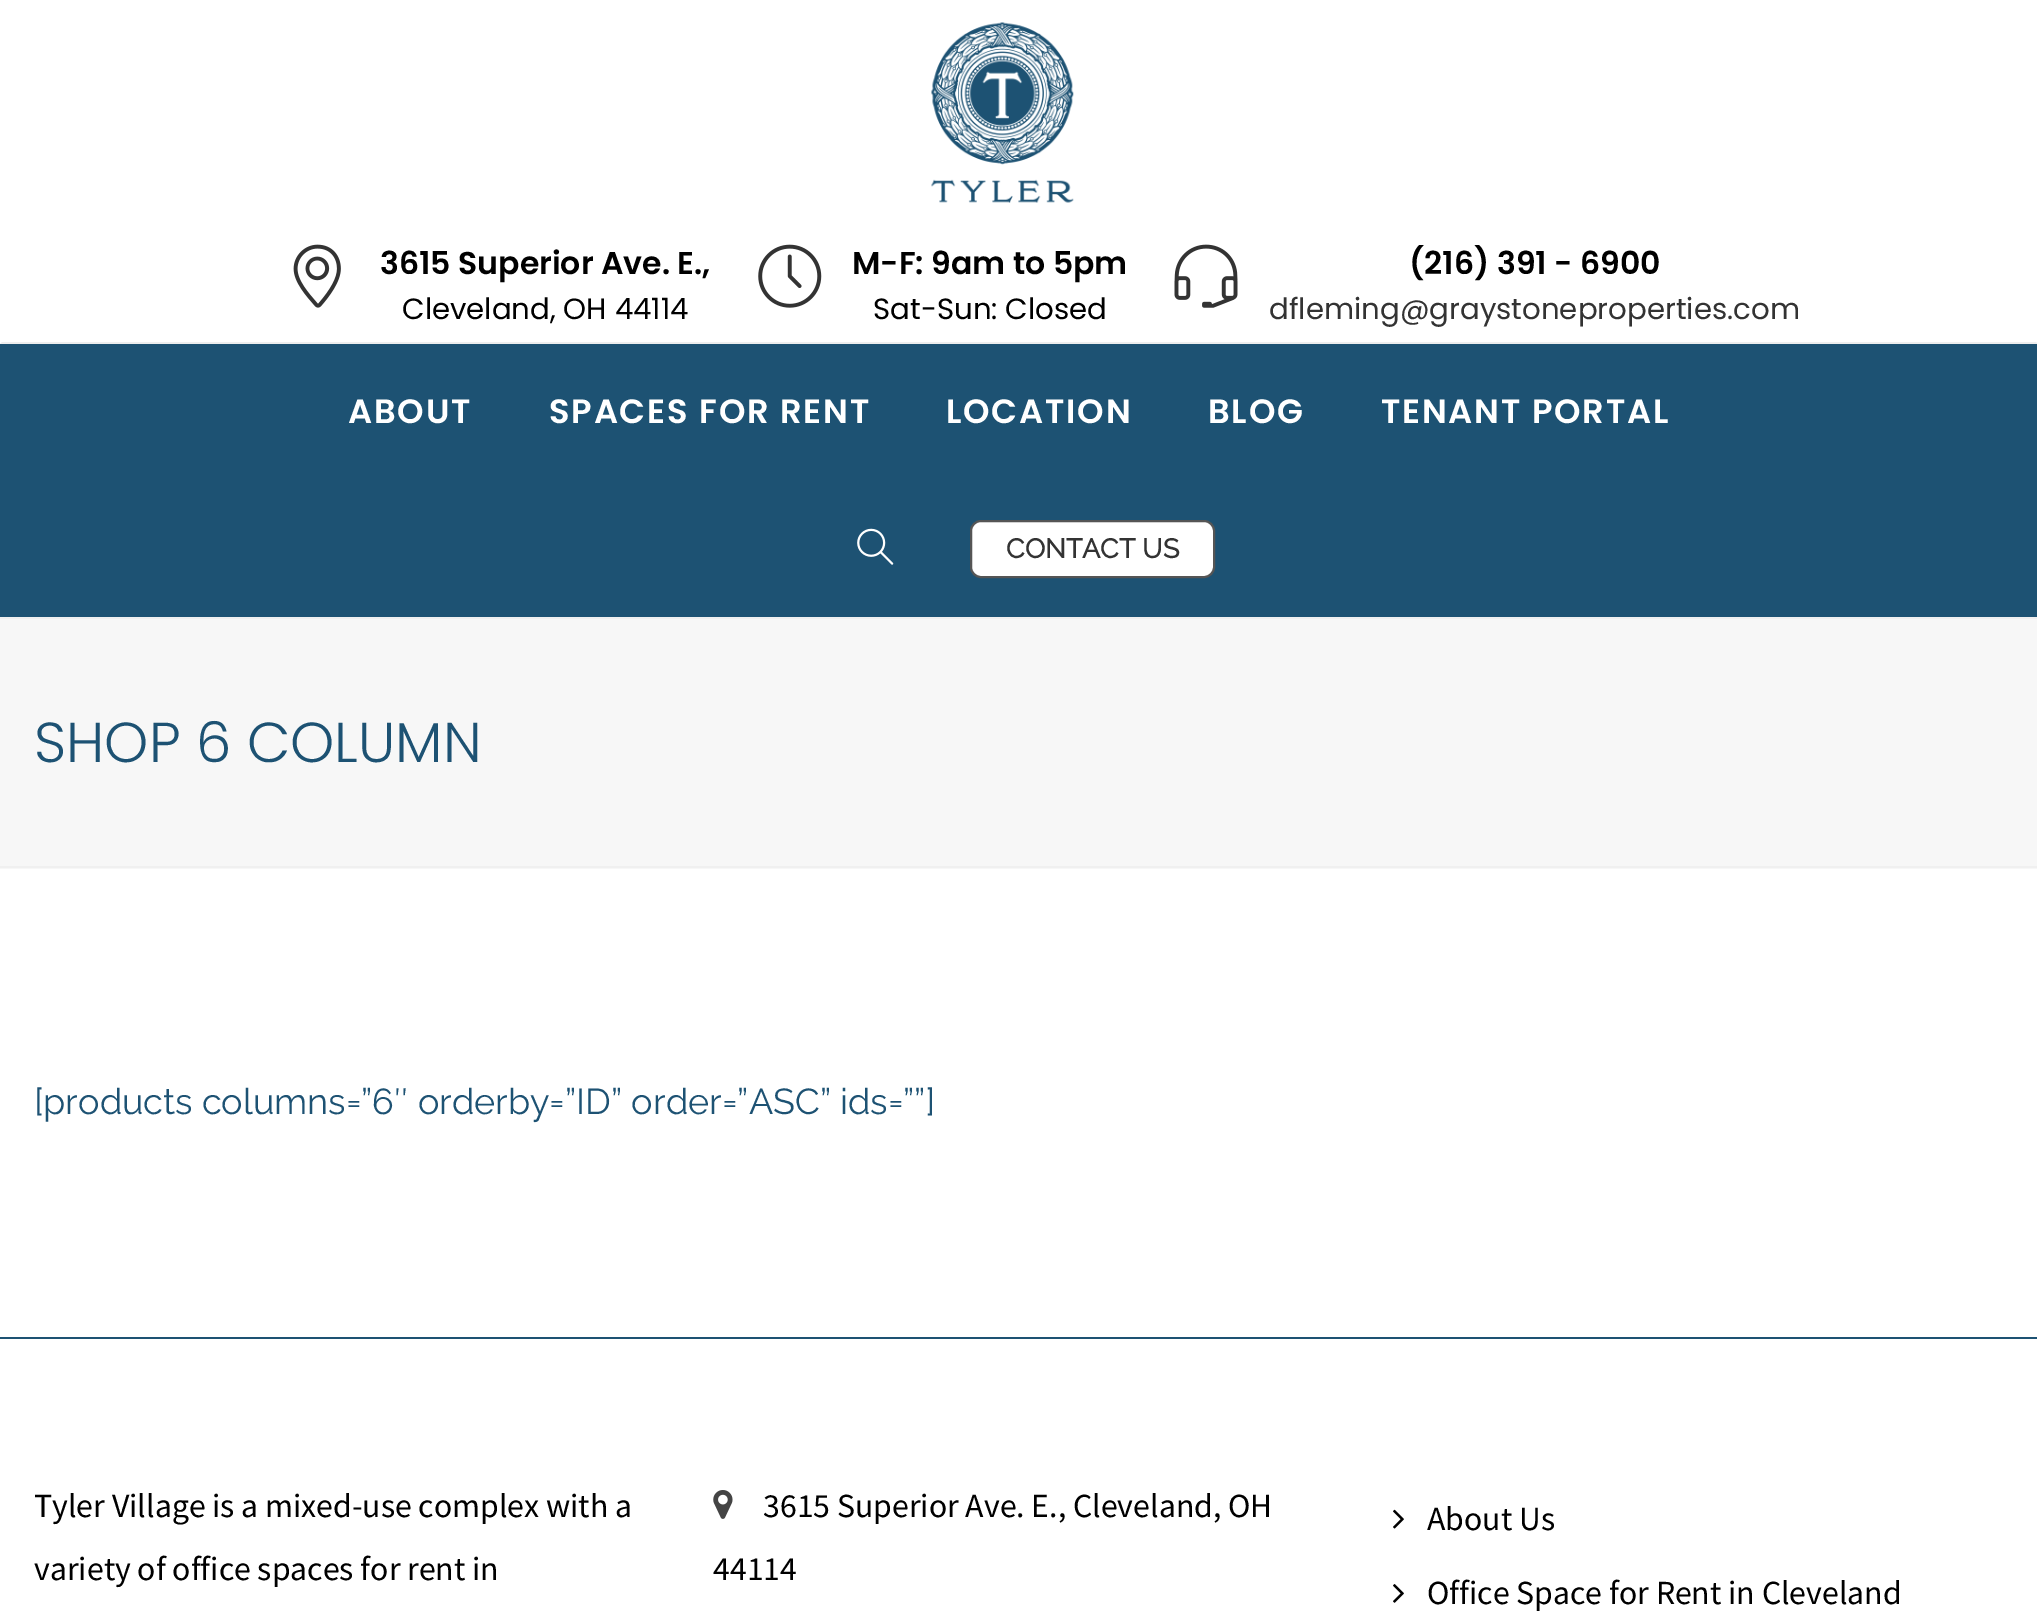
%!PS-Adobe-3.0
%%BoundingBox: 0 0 2037 1615
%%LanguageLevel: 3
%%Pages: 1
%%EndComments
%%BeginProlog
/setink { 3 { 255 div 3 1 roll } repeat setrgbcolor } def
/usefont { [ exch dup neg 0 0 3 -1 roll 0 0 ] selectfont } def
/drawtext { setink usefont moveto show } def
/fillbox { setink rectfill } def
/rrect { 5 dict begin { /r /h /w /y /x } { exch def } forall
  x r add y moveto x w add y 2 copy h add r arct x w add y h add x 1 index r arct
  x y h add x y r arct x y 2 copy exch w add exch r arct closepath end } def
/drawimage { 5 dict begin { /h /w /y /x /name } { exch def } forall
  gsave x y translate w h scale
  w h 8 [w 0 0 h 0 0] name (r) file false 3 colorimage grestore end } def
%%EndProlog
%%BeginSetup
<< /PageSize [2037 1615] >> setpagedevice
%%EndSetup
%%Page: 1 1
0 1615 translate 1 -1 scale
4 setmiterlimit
0 0 2037 1615 255 255 255 fillbox
238 238 238 setink
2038 344 moveto 0 344 lineto 2 342 lineto 2036 342 lineto closepath fill
(assets/img1.rgb) 931 22 143 181 drawimage
(assets/img2.rgb) 293 244 48 64 drawimage
(3615 Superior Ave. E.,) 380 274 /Poppins-SemiBold 31.5 0 0 0 drawtext
(Cleveland, OH 44114) 402 319 /Poppins-Regular 29.25 0 0 0 drawtext
(assets/img3.rgb) 758 244 64 64 drawimage
(M-F: 9am to 5pm) 852 274 /Poppins-SemiBold 31.5 0 0 0 drawtext
(Sat-Sun: Closed) 873 319 /Poppins-Regular 29.25 0 0 0 drawtext
(assets/img4.rgb) 1174 244 64 64 drawimage
(\(216\) 391 - 6900) 1409 274 /Poppins-SemiBold 31.5 0 0 0 drawtext
(dfleming@graystoneproperties.com) 1269 319 /Poppins-Regular 29.25 51 51 51 drawtext
0 344 2037 273 29 82 115 fillbox
/Poppins-SemiBold 33.75 usefont
255 255 255 setink
348 423 moveto 1.75 0 (ABOUT) ashow
549 423 moveto 1.75 0 (SPACES FOR RENT) ashow
946 423 moveto 1.75 0 (LOCATION) ashow
1208 423 moveto 1.75 0 (BLOG) ashow
1381 423 moveto 1.75 0 (TENANT PORTAL) ashow
(assets/img5.rgb) 857 528 37 37 drawimage
971 521 243 56 10 rrect gsave fill grestore
85 85 85 setink
2 setlinewidth
stroke
(CONTACT US) 1006 558 /Raleway-Bold 27 51 51 51 drawtext
0 619 2037 250 247 247 247 fillbox
0 617 2037 2 240 240 240 fillbox
0 866 2037 2 240 240 240 fillbox
(SHOP 6 COLUMN) 34 762 /Poppins-Light 56.25 29 82 115 drawtext
([products columns=”6″ orderby=”ID” order=”ASC” ids=””]) 34 1114 /Raleway-Thin 36 29 82 115 drawtext
0 1337 2037 2 29 82 115 fillbox
(Tyler Village is a mixed-use complex with a) 34 1517 /SourceSansPro-Regular 33.75 0 0 0 drawtext
(variety of office spaces for rent in) 34 1580 /SourceSansPro-Regular 33.75 0 0 0 drawtext
(assets/img6.rgb) 713 1490 20 29 drawimage
(3615 Superior Ave. E., Cleveland, OH) 763 1517 /SourceSansPro-Regular 33.75 0 0 0 drawtext
(44114) 713 1580 /SourceSansPro-Regular 33.75 0 0 0 drawtext
(assets/img7.rgb) 1393 1509 11 20 drawimage
(About Us) 1427 1530 /SourceSansPro-Regular 33.75 0 0 0 drawtext
(assets/img8.rgb) 1393 1584 11 19 drawimage
(Office Space for Rent in Cleveland) 1427 1604 /SourceSansPro-Regular 33.75 0 0 0 drawtext
showpage
%%EOF
